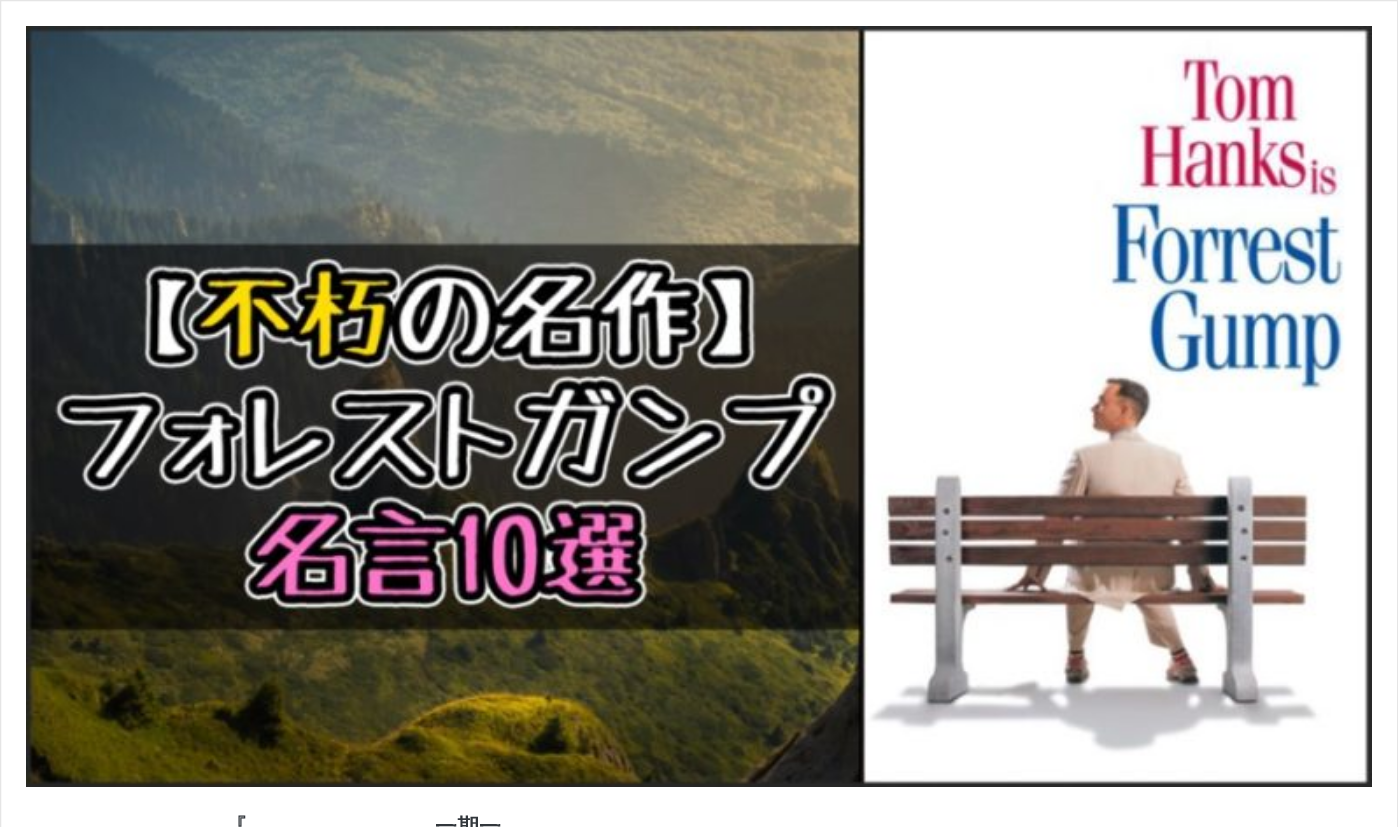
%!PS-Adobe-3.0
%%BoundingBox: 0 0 1398 827
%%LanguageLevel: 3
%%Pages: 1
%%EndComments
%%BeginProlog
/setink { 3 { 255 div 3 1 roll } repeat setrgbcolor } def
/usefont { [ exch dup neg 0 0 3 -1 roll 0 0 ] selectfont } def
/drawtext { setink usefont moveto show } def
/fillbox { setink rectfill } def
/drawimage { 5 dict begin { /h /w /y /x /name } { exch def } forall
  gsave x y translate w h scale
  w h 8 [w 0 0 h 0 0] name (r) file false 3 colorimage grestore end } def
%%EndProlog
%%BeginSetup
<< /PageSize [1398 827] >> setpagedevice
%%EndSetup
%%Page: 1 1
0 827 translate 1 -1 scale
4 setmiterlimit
0 0 1398 827 255 255 255 fillbox
229 229 229 setink
0.5 0.5 1397 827 rectstroke
(assets/img1.rgb) 26 26 1346 761 drawimage
(『) 225 834 /WenQuanYiZenHei-Bold 22 50 55 60 drawtext
(一期一) 435 834 /WenQuanYiZenHei-Bold 22 50 55 60 drawtext
showpage
%%EOF
